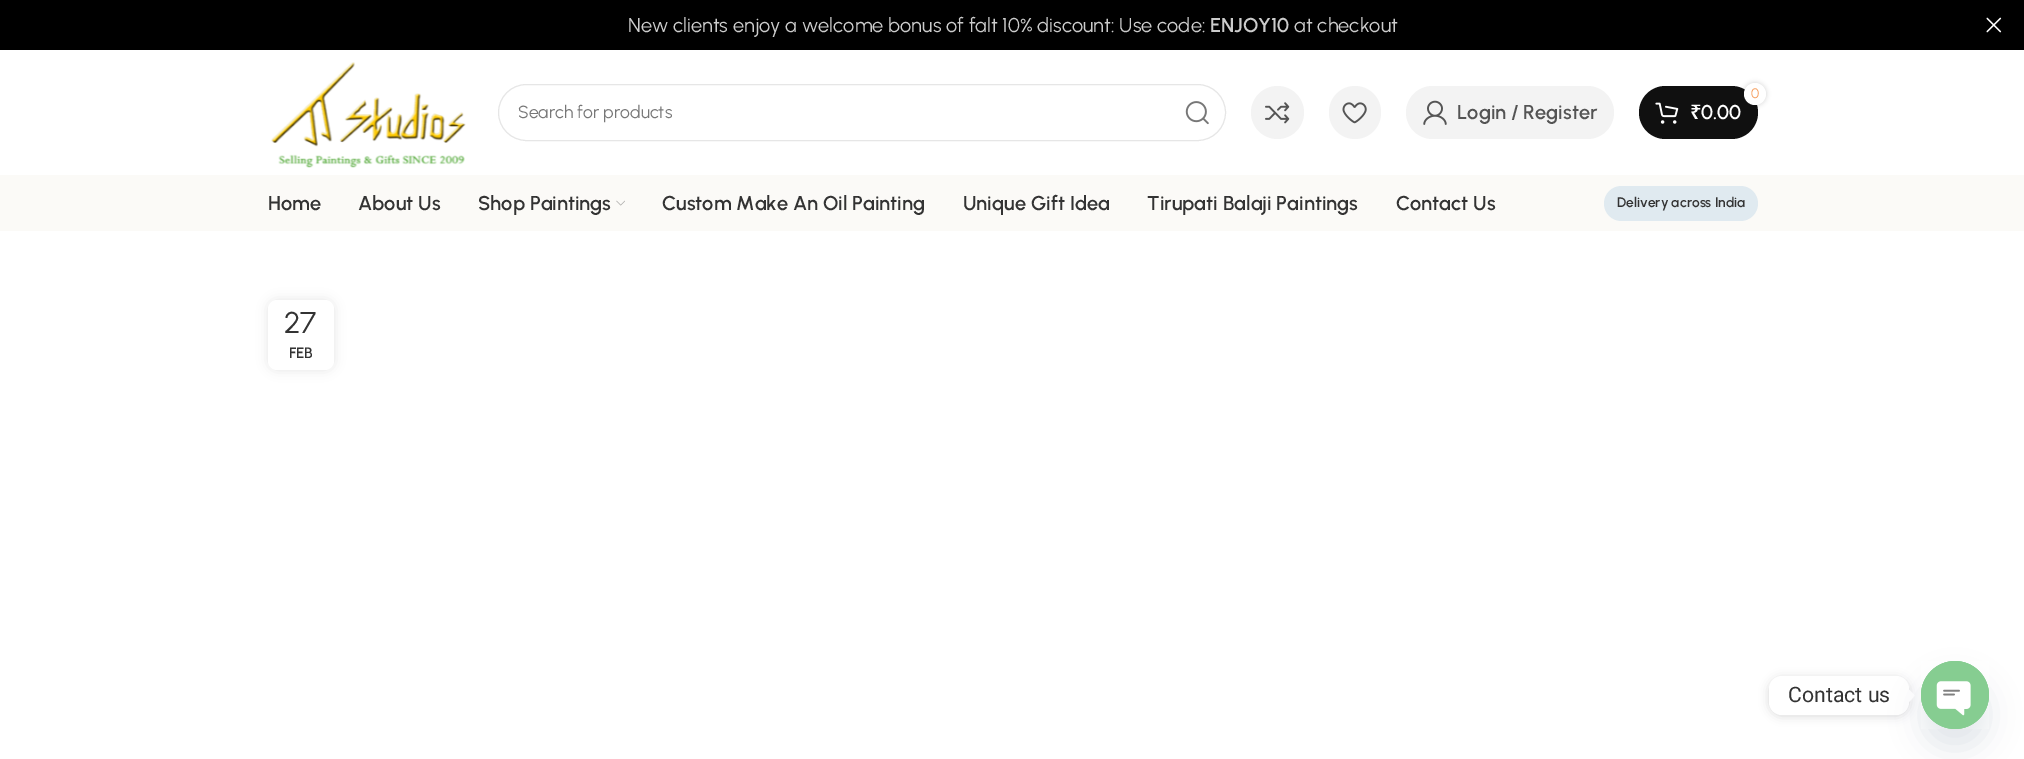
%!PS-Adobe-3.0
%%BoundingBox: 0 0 2024 759
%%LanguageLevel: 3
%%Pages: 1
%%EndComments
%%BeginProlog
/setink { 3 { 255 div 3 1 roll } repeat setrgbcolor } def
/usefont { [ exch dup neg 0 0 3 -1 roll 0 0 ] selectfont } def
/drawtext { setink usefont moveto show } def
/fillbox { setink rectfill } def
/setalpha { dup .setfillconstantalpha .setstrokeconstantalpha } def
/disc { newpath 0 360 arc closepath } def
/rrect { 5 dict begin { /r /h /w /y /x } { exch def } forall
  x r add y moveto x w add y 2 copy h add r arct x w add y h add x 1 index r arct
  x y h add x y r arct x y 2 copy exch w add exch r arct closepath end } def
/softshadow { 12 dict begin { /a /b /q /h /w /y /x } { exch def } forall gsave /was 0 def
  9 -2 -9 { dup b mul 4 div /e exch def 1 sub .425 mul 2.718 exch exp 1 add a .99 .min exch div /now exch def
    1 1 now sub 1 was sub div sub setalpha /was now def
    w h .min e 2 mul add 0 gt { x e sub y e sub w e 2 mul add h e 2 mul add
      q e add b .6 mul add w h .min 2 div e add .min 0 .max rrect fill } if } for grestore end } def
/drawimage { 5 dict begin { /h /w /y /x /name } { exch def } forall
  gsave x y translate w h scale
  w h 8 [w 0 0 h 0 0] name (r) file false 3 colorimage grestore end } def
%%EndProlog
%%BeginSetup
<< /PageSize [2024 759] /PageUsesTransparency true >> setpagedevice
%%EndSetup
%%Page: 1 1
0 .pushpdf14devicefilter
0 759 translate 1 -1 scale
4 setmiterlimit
0 0 2024 759 255 255 255 fillbox
0 0 2024 50 0 0 0 fillbox
(New clients enjoy a welcome bonus of falt 10% discount: Use code:) 628 32 /Urbanist-Regular 20 204 204 204 drawtext
(ENJOY10) 1210 32 /Urbanist-SemiBold 20 204 204 204 drawtext
(at checkout) 1294 32 /Urbanist-Regular 20 204 204 204 drawtext
(assets/img1.rgb) 1986 17 16 16 drawimage
0 0 0 setink
1.2 setlinewidth
1986 32.5 moveto 1982 28.5 1982 21.5 1986 17.5 curveto stroke
(assets/img2.rgb) 271 62 195 106 drawimage
230 230 230 setink
1 setlinewidth
498.5 84.5 727 56 28 rrect stroke
(Search for products) 518 118 /Urbanist-Regular 17.5 119 119 119 drawtext
(assets/img3.rgb) 1185 101 24 24 drawimage
243 243 243 setink
1277.5 112.5 26.5 disc fill
(assets/img4.rgb) 1265 102 25 22 drawimage
1329 86 52 53 26 rrect fill
(assets/img5.rgb) 1342 102 25 22 drawimage
1406 86 208 53 26.5 rrect fill
(assets/img6.rgb) 1423 100 24 25 drawimage
(Login / Register) 1457 119 /Urbanist-SemiBold 20 84 84 84 drawtext
16 16 16 setink
1639 86 119 53 26.5 rrect fill
0 0 0 setink
1744 83 22 22 11 2.5 0.17 softshadow
255 255 255 setink
1755 94 11 disc fill
(0) 1751 98 /Urbanist-Regular 13.75 245 154 87 drawtext
(assets/img7.rgb) 1655 102 24 22 drawimage
(₹) 1690 119 /NotoSans-SemiBold 20 255 255 255 drawtext
(0.00) 1701 119 /Urbanist-SemiBold 20 255 255 255 drawtext
0 175 2024 56 251 250 247 fillbox
(Home) 268 210 /Urbanist-SemiBold 20 51 51 51 drawtext
(About Us) 358 210 /Urbanist-SemiBold 20 51 51 51 drawtext
(Shop Paintings) 478 210 /Urbanist-SemiBold 20 51 51 51 drawtext
(assets/img8.rgb) 616 200 9 6 drawimage
(Custom Make An Oil Painting) 662 210 /Urbanist-SemiBold 20 51 51 51 drawtext
(Unique Gift Idea) 963 210 /Urbanist-SemiBold 20 51 51 51 drawtext
(Tirupati Balaji Paintings) 1147 210 /Urbanist-SemiBold 20 51 51 51 drawtext
(Contact Us) 1396 210 /Urbanist-SemiBold 20 51 51 51 drawtext
224 234 240 setink
1604 186 154 35 17.5 rrect fill
(Delivery across India) 1617 207 /Urbanist-SemiBold 13.75 51 51 51 drawtext
0 0 0 setink
268 300 66 70 9 5.5 0.1 softshadow
255 255 255 setink
268 300 66 70 9 rrect fill
(27) 284 333 /Urbanist-Regular 30 51 51 51 drawtext
(FEB) 289 358 /Urbanist-SemiBold 15 51 51 51 drawtext
0 0 0 setink
1769 678 140 38 13 5 0.15 softshadow
255 255 255 setink
1769 676 140 39 13 rrect fill
(Contact us) 1788 702 /Roboto-Regular 21.25 51 51 51 drawtext
255 255 255 setink
1909 702 moveto 1909 689.5 lineto 1915 695.5 lineto closepath fill
73 104 126 setink
1921 681 68 68 34 15 0.16 softshadow
(assets/img9.rgb) 1921 661 68 68 drawimage
.poppdf14devicefilter showpage
%%EOF
